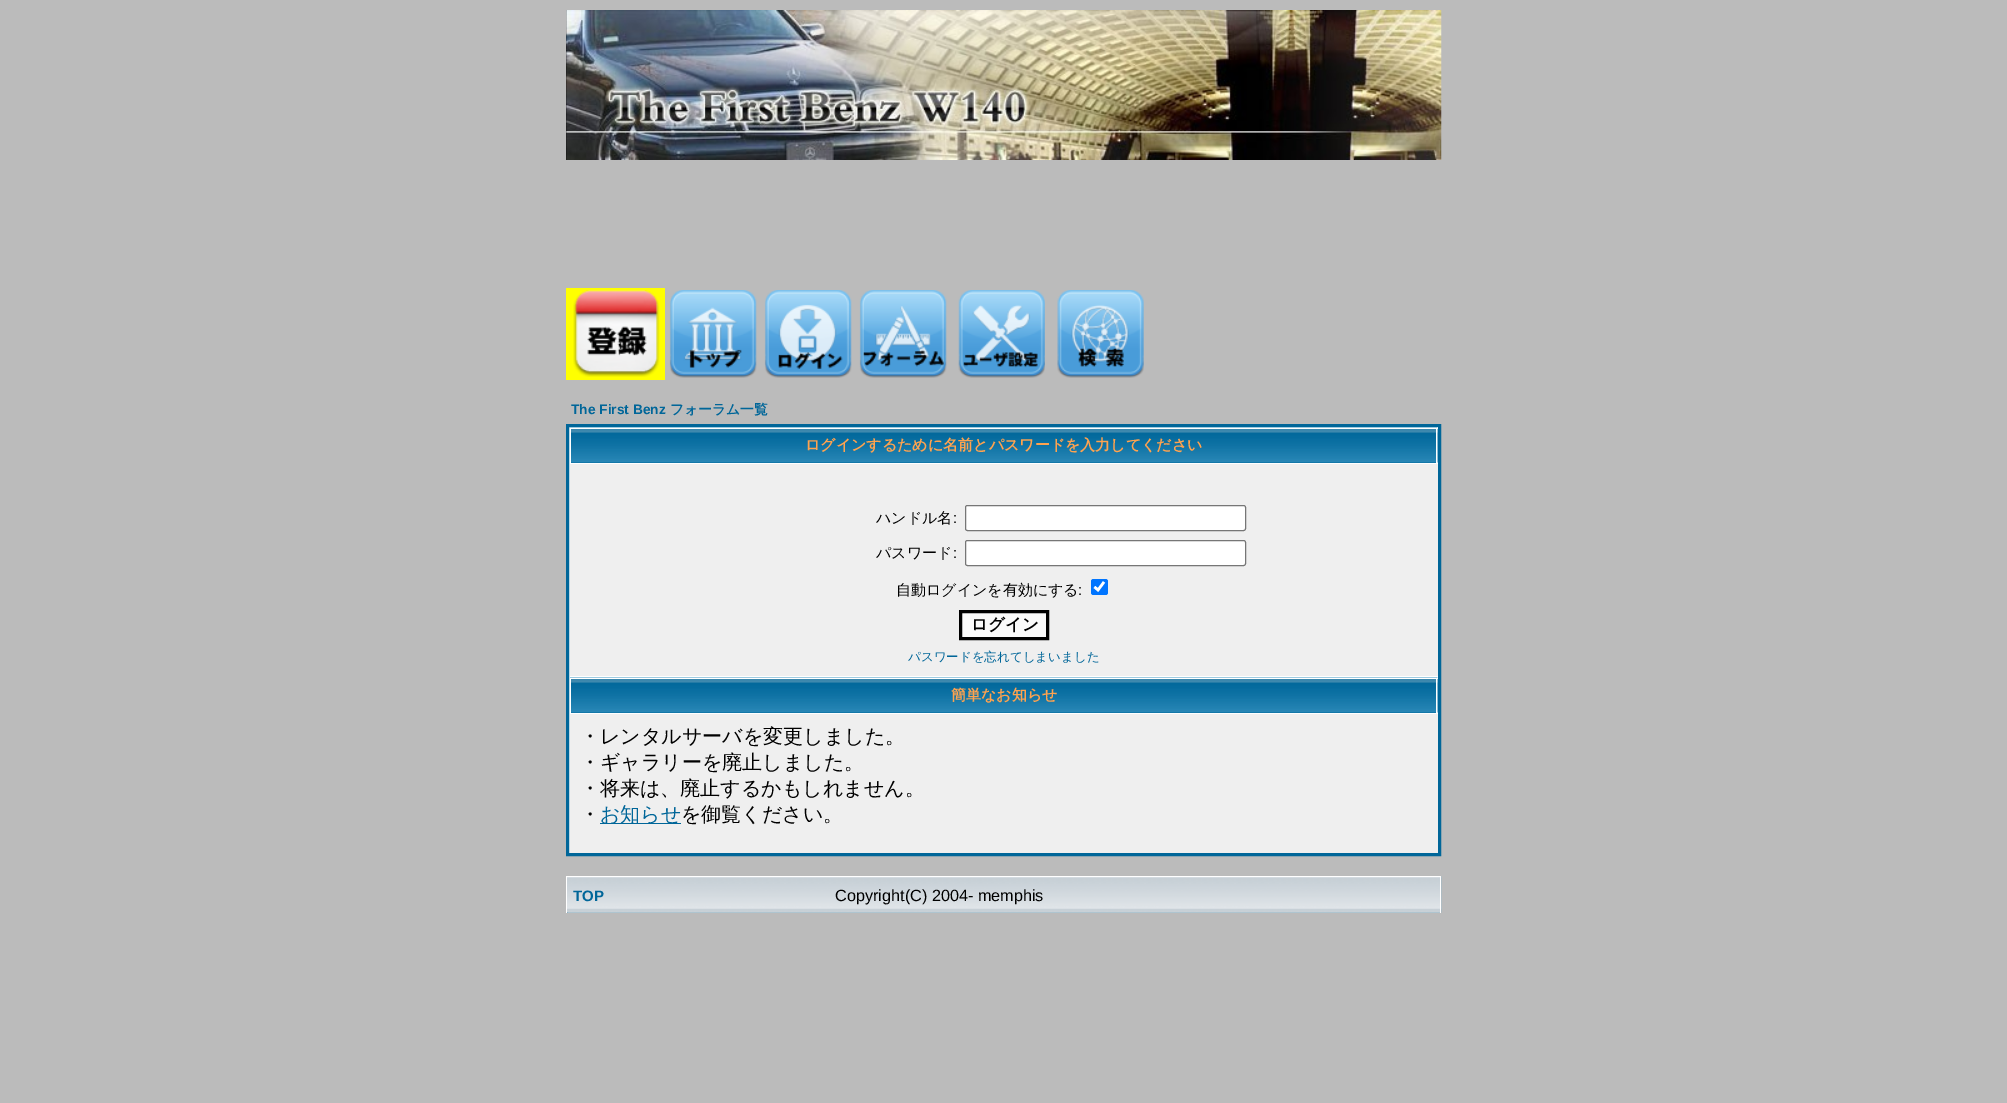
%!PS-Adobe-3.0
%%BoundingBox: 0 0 2007 1103
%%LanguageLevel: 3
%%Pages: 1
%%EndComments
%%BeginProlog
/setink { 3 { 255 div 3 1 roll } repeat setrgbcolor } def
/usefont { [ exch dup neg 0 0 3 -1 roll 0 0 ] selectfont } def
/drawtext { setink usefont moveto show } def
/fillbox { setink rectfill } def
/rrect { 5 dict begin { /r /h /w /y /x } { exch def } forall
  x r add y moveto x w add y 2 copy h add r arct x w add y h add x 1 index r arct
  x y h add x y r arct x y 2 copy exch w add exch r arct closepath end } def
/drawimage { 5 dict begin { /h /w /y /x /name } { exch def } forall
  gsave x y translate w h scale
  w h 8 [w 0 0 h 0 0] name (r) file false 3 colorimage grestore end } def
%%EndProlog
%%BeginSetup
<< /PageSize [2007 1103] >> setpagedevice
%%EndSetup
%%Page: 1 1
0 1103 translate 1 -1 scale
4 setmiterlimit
0 0 2007 1103 187 187 187 fillbox
(assets/img1.rgb) 566 10 876 150 drawimage
566 288 99 92 255 255 0 fillbox
(assets/img2.rgb) 573 290 87 87 drawimage
(assets/img3.rgb) 669 290 88 88 drawimage
(assets/img4.rgb) 764 290 88 88 drawimage
(assets/img5.rgb) 859 290 88 88 drawimage
(assets/img6.rgb) 958 290 87 88 drawimage
(assets/img7.rgb) 1057 290 87 88 drawimage
(The First Benz) 571 414 /LiberationSans-Bold 13.75 0 102 153 drawtext
(フォーラム一覧) 670 414 /WenQuanYiZenHei-Bold 13.75 0 102 153 drawtext
255 255 255 setink
567.5 425.5 moveto 1439.5 425.5 lineto 1439.5 854.5 lineto 567.5 854.5 lineto closepath gsave fill grestore
0 102 153 setink
3 setlinewidth
stroke
571 462 865 1 0 102 153 fillbox
(assets/img8.rgb) 570 427 868 36 drawimage
570 428 868 1 255 255 255 fillbox
1436 428 1 35 255 255 255 fillbox
570 428 1 35 255 255 255 fillbox
(ログインするために名前とパスワードを入力してください) 805 450 /WenQuanYiZenHei-Bold 15 255 163 79 drawtext
570 464 868 212 239 239 239 fillbox
(ハンドル名) 876 523 /WenQuanYiZenHei-Medium 15 0 0 0 drawtext
(:) 953 523 /LiberationSans-Regular 15 0 0 0 drawtext
255 255 255 setink
965.5 505.5 280 25 2 rrect gsave fill grestore
118 118 118 setink
1 setlinewidth
stroke
(パスワード) 876 558 /WenQuanYiZenHei-Medium 15 0 0 0 drawtext
(:) 953 558 /LiberationSans-Regular 15 0 0 0 drawtext
255 255 255 setink
965.5 540.5 280 25 2 rrect gsave fill grestore
118 118 118 setink
stroke
(自動ログインを有効にする) 896 595 /WenQuanYiZenHei-Medium 15 0 0 0 drawtext
(:) 1078 595 /LiberationSans-Regular 15 0 0 0 drawtext
0 117 255 setink
1091 579 17 16 2.5 rrect fill
255 255 255 setink
2.6 setlinewidth
1094.5 587 moveto 1098 590 lineto 1104 582 lineto stroke
250 250 250 setink
960.5 611.5 moveto 1047.5 611.5 lineto 1047.5 638.5 lineto 960.5 638.5 lineto closepath gsave fill grestore
0 0 0 setink
3 setlinewidth
stroke
(ログイン) 971 630 /WenQuanYiZenHei-Bold 16.5 0 0 0 drawtext
(パスワードを忘れてしまいました) 908 661 /WenQuanYiZenHei-Medium 12.5 0 102 153 drawtext
571 712 865 1 0 102 153 fillbox
(assets/img8.rgb) 570 677 868 36 drawimage
570 678 868 1 255 255 255 fillbox
1436 678 1 35 255 255 255 fillbox
570 678 1 35 255 255 255 fillbox
(簡単なお知らせ) 951 700 /WenQuanYiZenHei-Bold 15 255 163 79 drawtext
570 714 868 139 239 239 239 fillbox
(・レンタルサーバを変更しました。) 580 743 /WenQuanYiZenHei-Medium 20 0 0 0 drawtext
(・ギャラリーを廃止しました。) 580 769 /WenQuanYiZenHei-Medium 20 0 0 0 drawtext
(・将来は、廃止するかもしれません。) 580 795 /WenQuanYiZenHei-Medium 20 0 0 0 drawtext
(・) 580 821 /WenQuanYiZenHei-Medium 20 0 0 0 drawtext
600 823 81 1 0 102 153 fillbox
(お知らせ) 600 821 /WenQuanYiZenHei-Medium 20 0 102 153 drawtext
(を御覧ください。) 681 821 /WenQuanYiZenHei-Medium 20 0 0 0 drawtext
(assets/img9.rgb) 567 876 875 37 drawimage
566 876 875 1 255 255 255 fillbox
1440 876 1 37 255 255 255 fillbox
566 876 1 37 255 255 255 fillbox
(TOP) 573 901 /LiberationSans-Bold 15 0 102 153 drawtext
(Copyright\(C\) 2004- memphis) 835 901 /LiberationSans-Regular 16.25 0 0 0 drawtext
showpage
%%EOF
